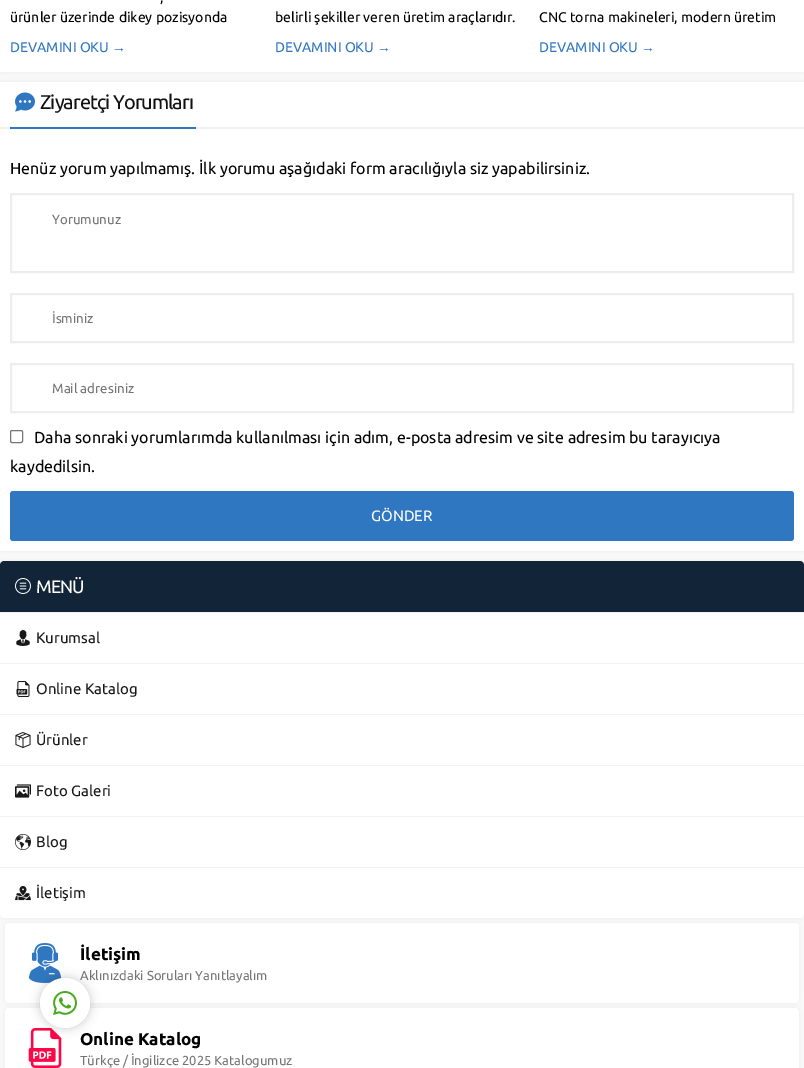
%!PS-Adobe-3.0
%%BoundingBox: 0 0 804 1068
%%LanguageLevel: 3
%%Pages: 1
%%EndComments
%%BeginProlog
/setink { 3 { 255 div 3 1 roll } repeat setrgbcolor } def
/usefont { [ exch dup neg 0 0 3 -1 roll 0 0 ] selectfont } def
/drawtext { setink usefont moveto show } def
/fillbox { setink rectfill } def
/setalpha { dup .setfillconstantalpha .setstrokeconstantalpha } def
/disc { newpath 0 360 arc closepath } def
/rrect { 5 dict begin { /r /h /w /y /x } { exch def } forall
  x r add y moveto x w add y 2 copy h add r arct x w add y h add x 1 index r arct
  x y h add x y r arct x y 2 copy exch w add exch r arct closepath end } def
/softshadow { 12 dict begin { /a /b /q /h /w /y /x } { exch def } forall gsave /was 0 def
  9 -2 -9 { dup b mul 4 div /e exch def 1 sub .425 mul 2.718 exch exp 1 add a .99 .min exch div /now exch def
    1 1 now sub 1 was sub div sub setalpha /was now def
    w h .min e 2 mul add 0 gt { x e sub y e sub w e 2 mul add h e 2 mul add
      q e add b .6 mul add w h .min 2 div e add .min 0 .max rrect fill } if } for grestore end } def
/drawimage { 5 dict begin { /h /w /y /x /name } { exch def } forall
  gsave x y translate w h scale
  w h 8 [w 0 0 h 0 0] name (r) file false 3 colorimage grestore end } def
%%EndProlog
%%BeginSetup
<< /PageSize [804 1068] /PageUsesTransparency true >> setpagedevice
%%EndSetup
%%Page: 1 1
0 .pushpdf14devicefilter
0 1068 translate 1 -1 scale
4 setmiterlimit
0 0 804 1068 249 249 249 fillbox
0 0 0 setink
0 -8 804 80 0 2.5 0.05 softshadow
0 0 804 72 255 255 255 fillbox
(,) 160 2 /Ubuntu-Regular 14 0 0 0 drawtext
(ürünler üzerinde dikey pozisyonda) 10 22 /Ubuntu-Regular 14 0 0 0 drawtext
(DEVAMINI OKU) 10 52 /Ubuntu-Regular 14 48 119 193 drawtext
(→) 112 52 /LiberationSans-Regular 14 48 119 193 drawtext
(belirli şekiller veren üretim araçlarıdır.) 275 22 /Ubuntu-Regular 14 0 0 0 drawtext
(DEVAMINI OKU) 275 52 /Ubuntu-Regular 14 48 119 193 drawtext
(→) 377 52 /LiberationSans-Regular 14 48 119 193 drawtext
(CNC torna makineleri, modern üretim) 539 22 /Ubuntu-Regular 14 0 0 0 drawtext
(DEVAMINI OKU) 539 52 /Ubuntu-Regular 14 48 119 193 drawtext
(→) 641 52 /LiberationSans-Regular 14 48 119 193 drawtext
0 0 0 setink
0 82 804 469 0 2.5 0.05 softshadow
0 82 804 469 255 255 255 fillbox
0 127 804 2 240 240 240 fillbox
10 127 186 2 48 119 193 fillbox
(assets/img1.rgb) 15 92 20 20 drawimage
/Ubuntu-Regular 20 usefont
17 17 17 setink
40 109 moveto -1 0 (Ziyaretçi Yorumları) ashow
(Henüz yorum yapılmamış. İlk yorumu aşağıdaki form aracılığıyla siz yapabilirsiniz.) 10 174 /Ubuntu-Regular 16 0 0 0 drawtext
237 237 237 setink
2 setlinewidth
11 194 782 78 rectstroke
(Yorumunuz) 52 224 /Ubuntu-Regular 13.25 117 117 117 drawtext
237 237 237 setink
11 294 782 48 rectstroke
(İsminiz) 52 323 /Ubuntu-Regular 13.25 117 117 117 drawtext
237 237 237 setink
11 364 782 48 rectstroke
(Mail adresiniz) 52 393 /Ubuntu-Regular 13.25 117 117 117 drawtext
118 118 118 setink
1 setlinewidth
10.5 430.5 12 12 1.5 rrect stroke
(Daha sonraki yorumlarımda kullanılması için adım, e-posta adresim ve site adresim bu tarayıcıya) 34 443 /Ubuntu-Regular 16 0 0 0 drawtext
(kaydedilsin.) 10 472 /Ubuntu-Regular 16 0 0 0 drawtext
48 119 193 setink
10 491 784 50 3 rrect fill
(GÖNDER) 371 521 /Ubuntu-Regular 15 255 255 255 drawtext
0 0 0 setink
0 561 804 357 4 2.5 0.05 softshadow
255 255 255 setink
0 561 804 357 4 rrect fill
18 37 56 setink
4 561 moveto 800 561 lineto 802 561 804 563 804 565 curveto 804 612 lineto 0 612 lineto 0 565 lineto 0 563 2 561 4 561 curveto closepath fill
(assets/img2.rgb) 15 578 16 16 drawimage
/Ubuntu-Regular 18 usefont
255 255 255 setink
36 593 moveto -1 0 (MENÜ) ashow
0 612 804 1 243 243 243 fillbox
(assets/img3.rgb) 16 630 14 16 drawimage
(Kurumsal) 36 643 /Ubuntu-Regular 15 24 24 24 drawtext
0 663 804 1 243 243 243 fillbox
(assets/img4.rgb) 16 681 14 16 drawimage
(Online Katalog) 36 694 /Ubuntu-Regular 15 24 24 24 drawtext
0 714 804 1 243 243 243 fillbox
(assets/img5.rgb) 15 732 16 16 drawimage
(Ürünler) 36 745 /Ubuntu-Regular 15 24 24 24 drawtext
0 765 804 1 243 243 243 fillbox
(assets/img6.rgb) 15 784 16 14 drawimage
(Foto Galeri) 36 796 /Ubuntu-Regular 15 24 24 24 drawtext
0 816 804 1 243 243 243 fillbox
(assets/img7.rgb) 15 834 16 16 drawimage
(Blog) 36 847 /Ubuntu-Regular 15 24 24 24 drawtext
0 867 804 1 243 243 243 fillbox
(assets/img8.rgb) 15 886 16 15 drawimage
(İletişim) 36 898 /Ubuntu-Regular 15 24 24 24 drawtext
0 0 0 setink
5 923 794 80 4 2.5 0.05 softshadow
255 255 255 setink
5 923 794 80 4 rrect fill
(assets/img9.rgb) 28 943 34 40 drawimage
(İletişim) 80 960 /Ubuntu-Bold 17 0 0 0 drawtext
(Aklınızdaki Soruları Yanıtlayalım) 80 980 /Ubuntu-Regular 13 117 117 117 drawtext
0 0 0 setink
5 1008 794 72 4 2.5 0.05 softshadow
255 255 255 setink
5 1008 794 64 4 rrect fill
(assets/img10.rgb) 28 1028 34 40 drawimage
(Online Katalog) 80 1045 /Ubuntu-Bold 17 0 0 0 drawtext
(Türkçe / İngilizce 2025 Katalogumuz) 80 1065 /Ubuntu-Regular 13 117 117 117 drawtext
0 0 0 setink
40 978 50 50 25 5 0.2 softshadow
255 255 255 setink
65 1003 25 disc fill
(assets/img11.rgb) 53 991 24 24 drawimage
.poppdf14devicefilter showpage
%%EOF
